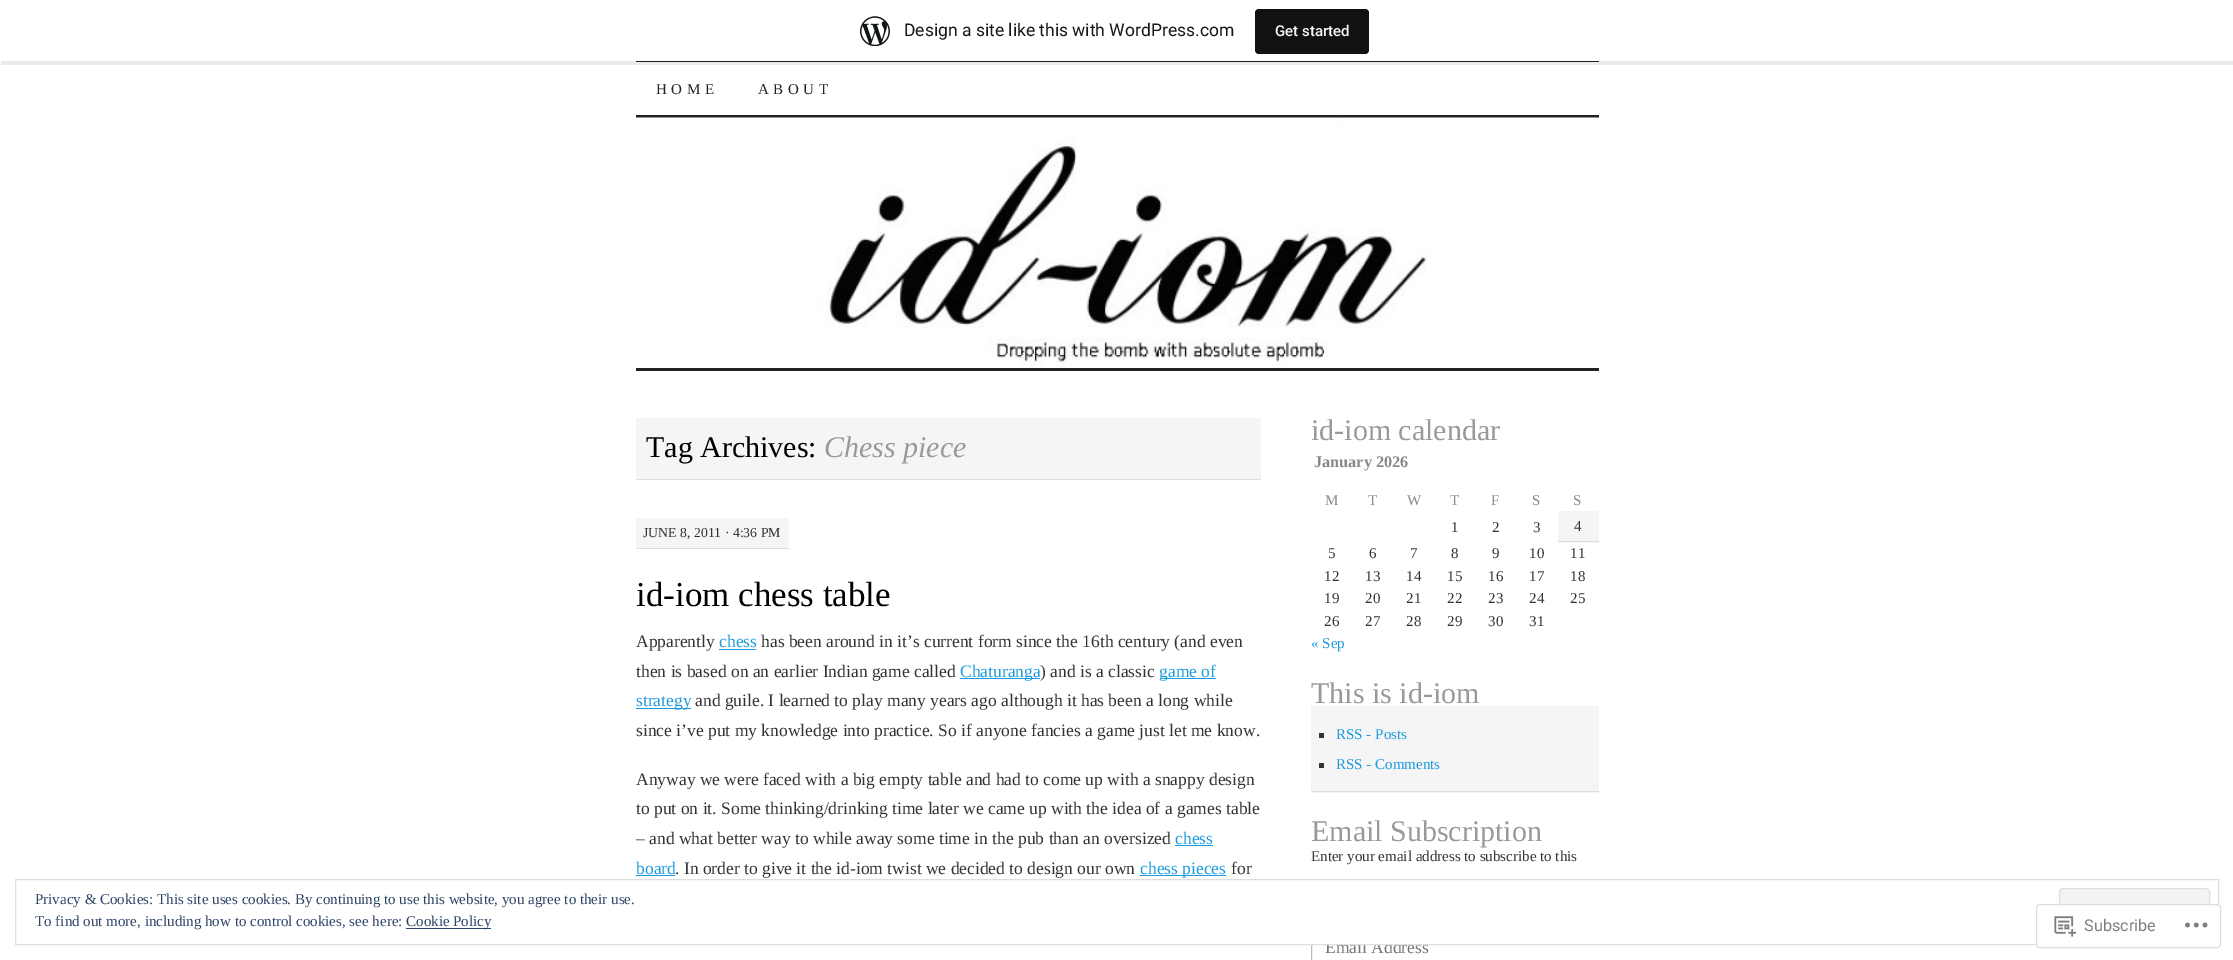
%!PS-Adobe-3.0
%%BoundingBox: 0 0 2233 960
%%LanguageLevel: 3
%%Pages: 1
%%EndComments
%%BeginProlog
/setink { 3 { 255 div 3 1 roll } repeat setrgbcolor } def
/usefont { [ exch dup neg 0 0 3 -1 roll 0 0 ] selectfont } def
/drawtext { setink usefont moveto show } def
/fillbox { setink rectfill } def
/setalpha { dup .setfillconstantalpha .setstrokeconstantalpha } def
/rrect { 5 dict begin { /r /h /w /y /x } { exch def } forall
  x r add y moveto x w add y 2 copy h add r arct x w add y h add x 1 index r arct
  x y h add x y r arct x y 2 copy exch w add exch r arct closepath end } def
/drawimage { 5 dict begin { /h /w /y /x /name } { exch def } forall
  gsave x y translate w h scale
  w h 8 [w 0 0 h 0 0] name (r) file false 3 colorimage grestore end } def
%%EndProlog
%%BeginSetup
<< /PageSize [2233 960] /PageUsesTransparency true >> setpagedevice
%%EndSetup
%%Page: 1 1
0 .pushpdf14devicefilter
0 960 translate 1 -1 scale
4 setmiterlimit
0 0 2233 960 255 255 255 fillbox
636 61 963 1 34 34 34 fillbox
0.08 setalpha
0 0 0 setink
1 61 moveto 1 65 lineto 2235 65 lineto 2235 4 lineto 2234 4 lineto 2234 61 lineto closepath fill
1 setalpha
(assets/img1.rgb) 860 16 30 30 drawimage
(Design a site like this with WordPress.com) 904 36 /Roboto-Regular 17.5 23 23 23 drawtext
17 17 17 setink
1255 9 114 45 4 rrect fill
(Get started) 1275 36 /Roboto-Medium 15 246 247 247 drawtext
gsave
1311 418 288 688 rectclip
187 187 187 setink
1311.5 931.5 299 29 rectstroke
grestore
(Email Address) 1325 953 /LiberationSerif-Regular 17.5 117 117 117 drawtext
1311 931 288 13 255 255 255 fillbox
222 222 222 setink
15.5 879.5 2203 65 rectstroke
(Privacy & Cookies: This site uses cookies. By continuing to use this website, you agree to their use.) 35 904 /LiberationSerif-Regular 15 46 68 103 drawtext
243 243 243 setink
2059.5 888.5 150 47 3.5 rrect gsave fill grestore
222 222 222 setink
stroke
(To find out more, including how to control cookies, see here:) 35 926 /LiberationSerif-Regular 15 46 68 103 drawtext
406 928 85 1 46 68 103 fillbox
(Cookie Policy) 406 926 /LiberationSerif-Regular 15 46 68 103 drawtext
636 115 963 3 34 34 34 fillbox
656 94 moveto 4.5 0 (HOME) ashow
758 94 moveto 4.5 0 (ABOUT) ashow
(assets/img2.rgb) 636 117 963 251 drawimage
636 368 963 3 34 34 34 fillbox
636 418 625 61 245 245 245 fillbox
636 479 625 1 221 221 221 fillbox
(Tag Archives:) 646 457 /LiberationSerif-Regular 30 0 0 0 drawtext
(Chess piece) 824 457 /LiberationSerif-Italic 30 153 153 153 drawtext
636 518 153 30 245 245 245 fillbox
636 548 153 1 221 221 221 fillbox
(JUNE 8, 2011 · 4:36 PM) 643 537 /LiberationSerif-Regular 13.75 51 51 51 drawtext
(id-iom chess table) 636 606 /LiberationSerif-Regular 35 0 0 0 drawtext
(Apparently) 636 647 /LiberationSerif-Regular 17.5 51 51 51 drawtext
(chess) 719 647 /LiberationSerif-Regular 17.5 28 155 220 drawtext
719 649 37 1 28 155 220 fillbox
(has been around in it’s current form since the 16th century \(and even) 761 647 /LiberationSerif-Regular 17.5 51 51 51 drawtext
(then is based on an earlier Indian game called) 636 677 /LiberationSerif-Regular 17.5 51 51 51 drawtext
960 678 80 1 28 155 220 fillbox
(Chaturanga) 960 677 /LiberationSerif-Regular 17.5 28 155 220 drawtext
(\) and is a classic) 1040 677 /LiberationSerif-Regular 17.5 51 51 51 drawtext
1160 678 56 1 28 155 220 fillbox
(game of) 1159 677 /LiberationSerif-Regular 17.5 28 155 220 drawtext
636 708 55 1 28 155 220 fillbox
(strategy) 636 706 /LiberationSerif-Regular 17.5 28 155 220 drawtext
(and guile. I learned to play many years ago although it has been a long while) 695 706 /LiberationSerif-Regular 17.5 51 51 51 drawtext
(since i’ve put my knowledge into practice. So if anyone fancies a game just let me know.) 636 736 /LiberationSerif-Regular 17.5 51 51 51 drawtext
(Anyway we were faced with a big empty table and had to come up with a snappy design) 636 785 /LiberationSerif-Regular 17.5 51 51 51 drawtext
(to put on it. Some thinking/drinking time later we came up with the idea of a games table) 636 814 /LiberationSerif-Regular 17.5 51 51 51 drawtext
(– and what better way to while away some time in the pub than an oversized) 636 844 /LiberationSerif-Regular 17.5 51 51 51 drawtext
(chess) 1175 844 /LiberationSerif-Regular 17.5 28 155 220 drawtext
1175 845 38 1 28 155 220 fillbox
(board) 636 874 /LiberationSerif-Regular 17.5 28 155 220 drawtext
636 875 39 1 28 155 220 fillbox
(. In order to give it the id-iom twist we decided to design our own) 675 874 /LiberationSerif-Regular 17.5 51 51 51 drawtext
1140 875 86 1 28 155 220 fillbox
(chess pieces) 1140 874 /LiberationSerif-Regular 17.5 28 155 220 drawtext
(for) 1231 874 /LiberationSerif-Regular 17.5 51 51 51 drawtext
(id-iom calendar) 1311 440 /LiberationSerif-Regular 30 153 153 153 drawtext
(January 2026) 1314 467 /LiberationSerif-Bold 16.25 136 136 136 drawtext
(M) 1325 505 /LiberationSerif-Regular 15 136 136 136 drawtext
(T) 1368 505 /LiberationSerif-Regular 15 136 136 136 drawtext
(W) 1407 505 /LiberationSerif-Regular 15 136 136 136 drawtext
(T) 1450 505 /LiberationSerif-Regular 15 136 136 136 drawtext
(F) 1491 505 /LiberationSerif-Regular 15 136 136 136 drawtext
(S) 1532 505 /LiberationSerif-Regular 15 136 136 136 drawtext
(S) 1573 505 /LiberationSerif-Regular 15 136 136 136 drawtext
(1) 1451 532 /LiberationSerif-Regular 15 51 51 51 drawtext
(2) 1492 532 /LiberationSerif-Regular 15 51 51 51 drawtext
(3) 1533 532 /LiberationSerif-Regular 15 51 51 51 drawtext
1558 511 41 32 245 245 245 fillbox
1558 541 41 1 221 221 221 fillbox
(4) 1574 531 /LiberationSerif-Regular 15 51 51 51 drawtext
(5) 1328 558 /LiberationSerif-Regular 15 51 51 51 drawtext
(6) 1369 558 /LiberationSerif-Regular 15 51 51 51 drawtext
(7) 1410 558 /LiberationSerif-Regular 15 51 51 51 drawtext
(8) 1451 558 /LiberationSerif-Regular 15 51 51 51 drawtext
(9) 1492 558 /LiberationSerif-Regular 15 51 51 51 drawtext
(10) 1529 558 /LiberationSerif-Regular 15 51 51 51 drawtext
(11) 1570 558 /LiberationSerif-Regular 15 51 51 51 drawtext
(12) 1324 581 /LiberationSerif-Regular 15 51 51 51 drawtext
(13) 1365 581 /LiberationSerif-Regular 15 51 51 51 drawtext
(14) 1406 581 /LiberationSerif-Regular 15 51 51 51 drawtext
(15) 1447 581 /LiberationSerif-Regular 15 51 51 51 drawtext
(16) 1488 581 /LiberationSerif-Regular 15 51 51 51 drawtext
(17) 1529 581 /LiberationSerif-Regular 15 51 51 51 drawtext
(18) 1570 581 /LiberationSerif-Regular 15 51 51 51 drawtext
(19) 1324 603 /LiberationSerif-Regular 15 51 51 51 drawtext
(20) 1365 603 /LiberationSerif-Regular 15 51 51 51 drawtext
(21) 1406 603 /LiberationSerif-Regular 15 51 51 51 drawtext
(22) 1447 603 /LiberationSerif-Regular 15 51 51 51 drawtext
(23) 1488 603 /LiberationSerif-Regular 15 51 51 51 drawtext
(24) 1529 603 /LiberationSerif-Regular 15 51 51 51 drawtext
(25) 1570 603 /LiberationSerif-Regular 15 51 51 51 drawtext
(26) 1324 626 /LiberationSerif-Regular 15 51 51 51 drawtext
(27) 1365 626 /LiberationSerif-Regular 15 51 51 51 drawtext
(28) 1406 626 /LiberationSerif-Regular 15 51 51 51 drawtext
(29) 1447 626 /LiberationSerif-Regular 15 51 51 51 drawtext
(30) 1488 626 /LiberationSerif-Regular 15 51 51 51 drawtext
(31) 1529 626 /LiberationSerif-Regular 15 51 51 51 drawtext
(« Sep) 1311 648 /LiberationSerif-Regular 15 28 155 220 drawtext
(This is id-iom) 1311 703 /LiberationSerif-Regular 30 153 153 153 drawtext
1311 706 288 87 245 245 245 fillbox
1311 791 288 1 221 221 221 fillbox
1319 733 5 5 51 51 51 fillbox
(RSS - Posts) 1336 739 /LiberationSerif-Regular 15 28 155 220 drawtext
1319 763 5 5 51 51 51 fillbox
(RSS - Comments) 1336 769 /LiberationSerif-Regular 15 28 155 220 drawtext
(Email Subscription) 1311 841 /LiberationSerif-Regular 30 153 153 153 drawtext
(Enter your email address to subscribe to this) 1311 861 /LiberationSerif-Regular 15 51 51 51 drawtext
0.98 setalpha
255 255 255 setink
2036 904 185 44 4 rrect fill
220 220 222 setink
2036.5 904.5 184 43 3.5 rrect stroke
1 setalpha
(assets/img3.rgb) 2054 916 22 21 drawimage
(Subscribe) 2084 931 /Roboto-Regular 16.25 123 127 132 drawtext
(assets/img4.rgb) 2185 922 23 6 drawimage
.poppdf14devicefilter showpage
%%EOF
